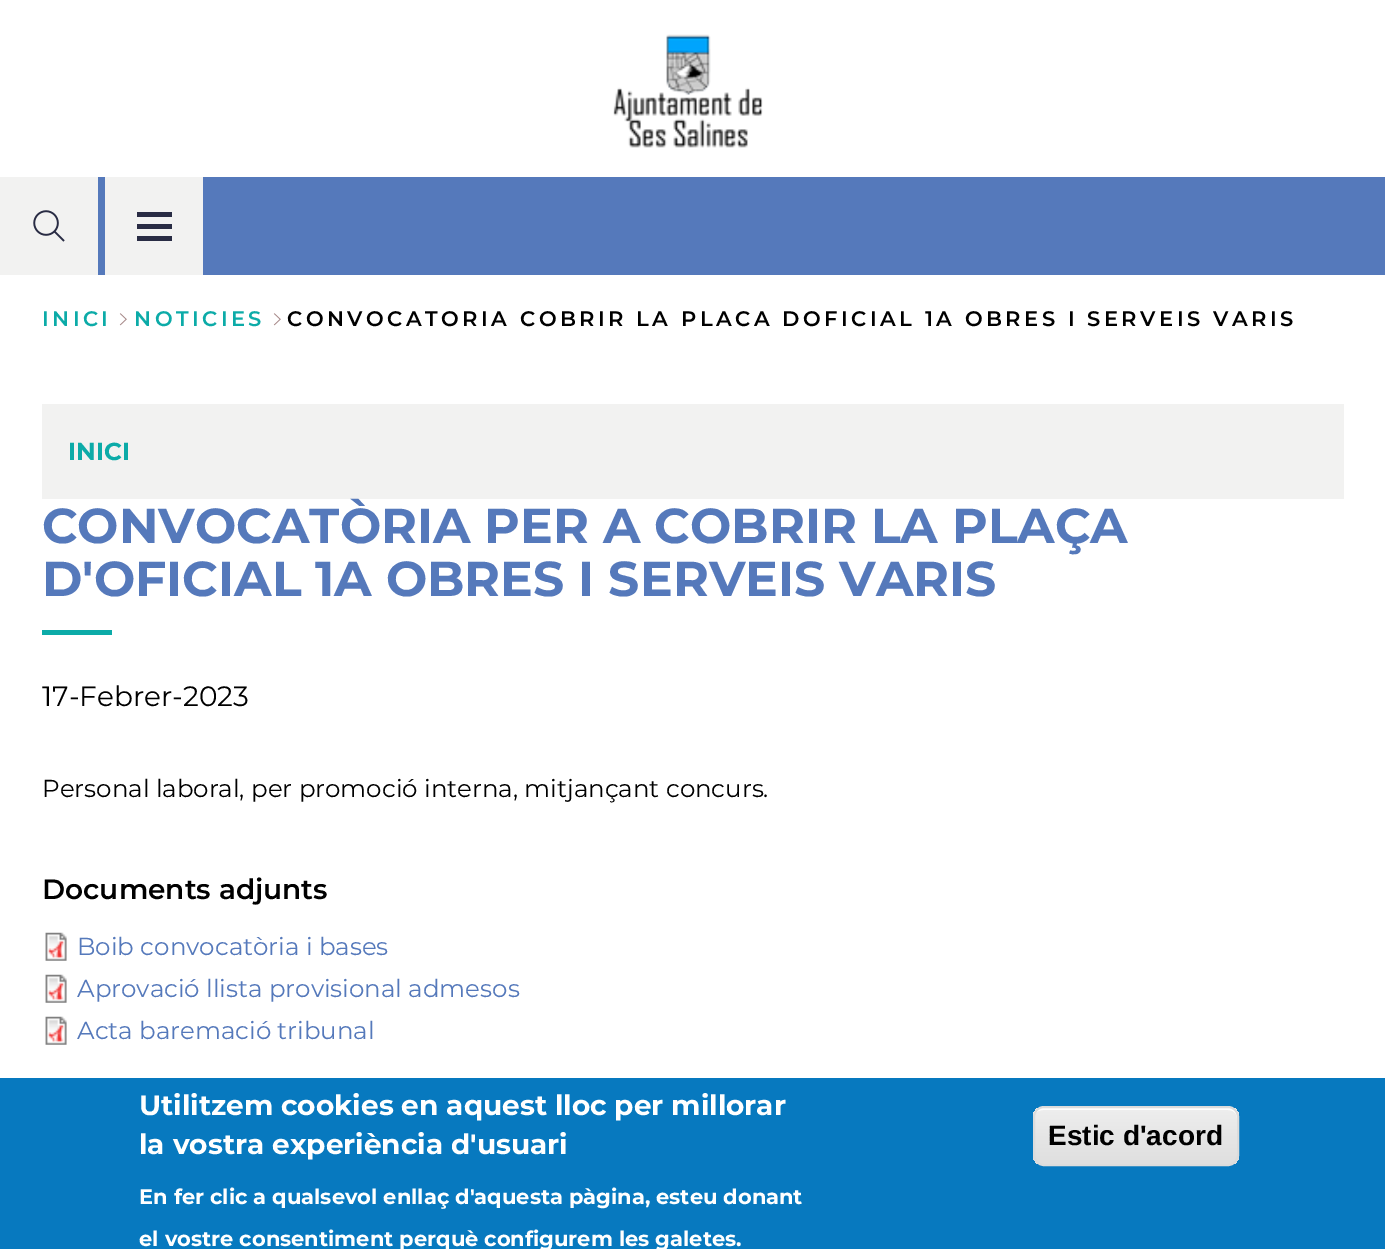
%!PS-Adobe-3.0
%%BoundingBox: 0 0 1385 1249
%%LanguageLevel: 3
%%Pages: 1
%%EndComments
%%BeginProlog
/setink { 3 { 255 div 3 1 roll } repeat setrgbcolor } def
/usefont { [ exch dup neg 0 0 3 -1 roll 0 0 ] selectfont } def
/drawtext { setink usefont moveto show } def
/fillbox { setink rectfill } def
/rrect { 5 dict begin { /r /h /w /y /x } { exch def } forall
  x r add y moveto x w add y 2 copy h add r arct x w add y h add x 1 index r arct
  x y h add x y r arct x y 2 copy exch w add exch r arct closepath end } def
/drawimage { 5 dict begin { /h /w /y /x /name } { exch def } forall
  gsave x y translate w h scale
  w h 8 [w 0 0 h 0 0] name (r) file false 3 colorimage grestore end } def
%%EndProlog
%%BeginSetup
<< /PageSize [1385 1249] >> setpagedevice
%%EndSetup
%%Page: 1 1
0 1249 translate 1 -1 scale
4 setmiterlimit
0 0 1385 1249 255 255 255 fillbox
(assets/img1.rgb) 613 34 150 114 drawimage
98 177 1287 98 85 121 187 fillbox
0 177 98 98 242 242 241 fillbox
(assets/img2.rgb) 33 210 32 32 drawimage
105 177 98 98 242 242 241 fillbox
137 224 35 5 41 44 68 fillbox
137 212 35 5 41 44 68 fillbox
137 236 35 5 41 44 68 fillbox
/Montserrat-SemiBold 21 usefont
12 171 168 setink
42 326 moveto 3.5 0 (INICI) ashow
(assets/img3.rgb) 119 313 8 13 drawimage
134 326 moveto 3.5 0 (NOTICIES) ashow
(assets/img3.rgb) 273 313 8 13 drawimage
0 0 0 setink
287 326 moveto 3.5 0 (CONVOCATORIA COBRIR LA PLACA DOFICIAL 1A OBRES I SERVEIS VARIS) ashow
42 404 1302 95 242 242 241 fillbox
(INICI) 68 460 /Montserrat-Bold 24.5 12 171 168 drawtext
(CONVOCATÒRIA PER A COBRIR LA PLAÇA) 42 543 /Montserrat-Bold 49 85 121 187 drawtext
(D'OFICIAL 1A OBRES I SERVEIS VARIS) 42 596 /Montserrat-Bold 49 85 121 187 drawtext
42 630 70 5 12 171 168 fillbox
(17-Febrer-2023) 42 706 /Montserrat-Regular 28 0 0 0 drawtext
(Personal laboral, per promoció interna, mitjançant concurs.) 42 797 /Montserrat-Regular 24.5 0 0 0 drawtext
(Documents adjunts) 42 899 /Montserrat-SemiBold 28 0 0 0 drawtext
(assets/img4.rgb) 45 932 22 29 drawimage
(Boib convocatòria i bases) 77 955 /Montserrat-Regular 24.5 85 121 187 drawtext
(assets/img4.rgb) 45 974 22 29 drawimage
(Aprovació llista provisional admesos) 77 997 /Montserrat-Regular 24.5 85 121 187 drawtext
(assets/img4.rgb) 45 1016 22 29 drawimage
(Acta baremació tribunal) 77 1039 /Montserrat-Regular 24.5 85 121 187 drawtext
0 1078 1385 171 7 121 191 fillbox
(Utilitzem cookies en aquest lloc per millorar) 139 1115 /Montserrat-Bold 28 255 255 255 drawtext
(la vostra experiència d'usuari) 139 1154 /Montserrat-Bold 28 255 255 255 drawtext
(En fer clic a qualsevol enllaç d'aquesta pàgina, esteu donant) 139 1204 /Montserrat-Bold 21 255 255 255 drawtext
(el vostre consentiment perquè configurem les galetes.) 139 1246 /Montserrat-Bold 21 255 255 255 drawtext
gsave
1033 1106 206 60 11 rrect clip newpath
gsave 1033 1108 moveto 1239 1108 lineto 1239 1164 lineto 1033 1164 lineto closepath clip newpath
<< /ShadingType 2 /ColorSpace /DeviceRGB /Coords [1136 1108 1136 1164] /Extend [true true] /Function << /FunctionType 3 /Domain [0 1] /Functions [<< /FunctionType 2 /Domain [0 1] /C0 [0.929 0.929 0.929] /C1 [0.929 0.929 0.929] /N 1 >> << /FunctionType 2 /Domain [0 1] /C0 [0.929 0.929 0.929] /C1 [0.875 0.875 0.875] /N 1 >>] /Bounds [0.05] /Encode [0 1 0 1] >> >> shfill grestore
grestore
1043 1110 moveto 1228 1110 lineto 1233 1110 1237 1113 1237 1118 curveto 1237 1117 lineto 1237 1112 1233 1108 1228 1108 curveto 1043 1108 lineto 1038 1108 1034 1112 1034 1117 curveto 1034 1118 lineto 1034 1113 1038 1110 1043 1110 curveto closepath fill
220 220 220 setink
2 setlinewidth
1034 1107 204 58 10 rrect stroke
(Estic d'acord) 1048 1145 /LiberationSans-Bold 28 0 0 0 drawtext
showpage
%%EOF
